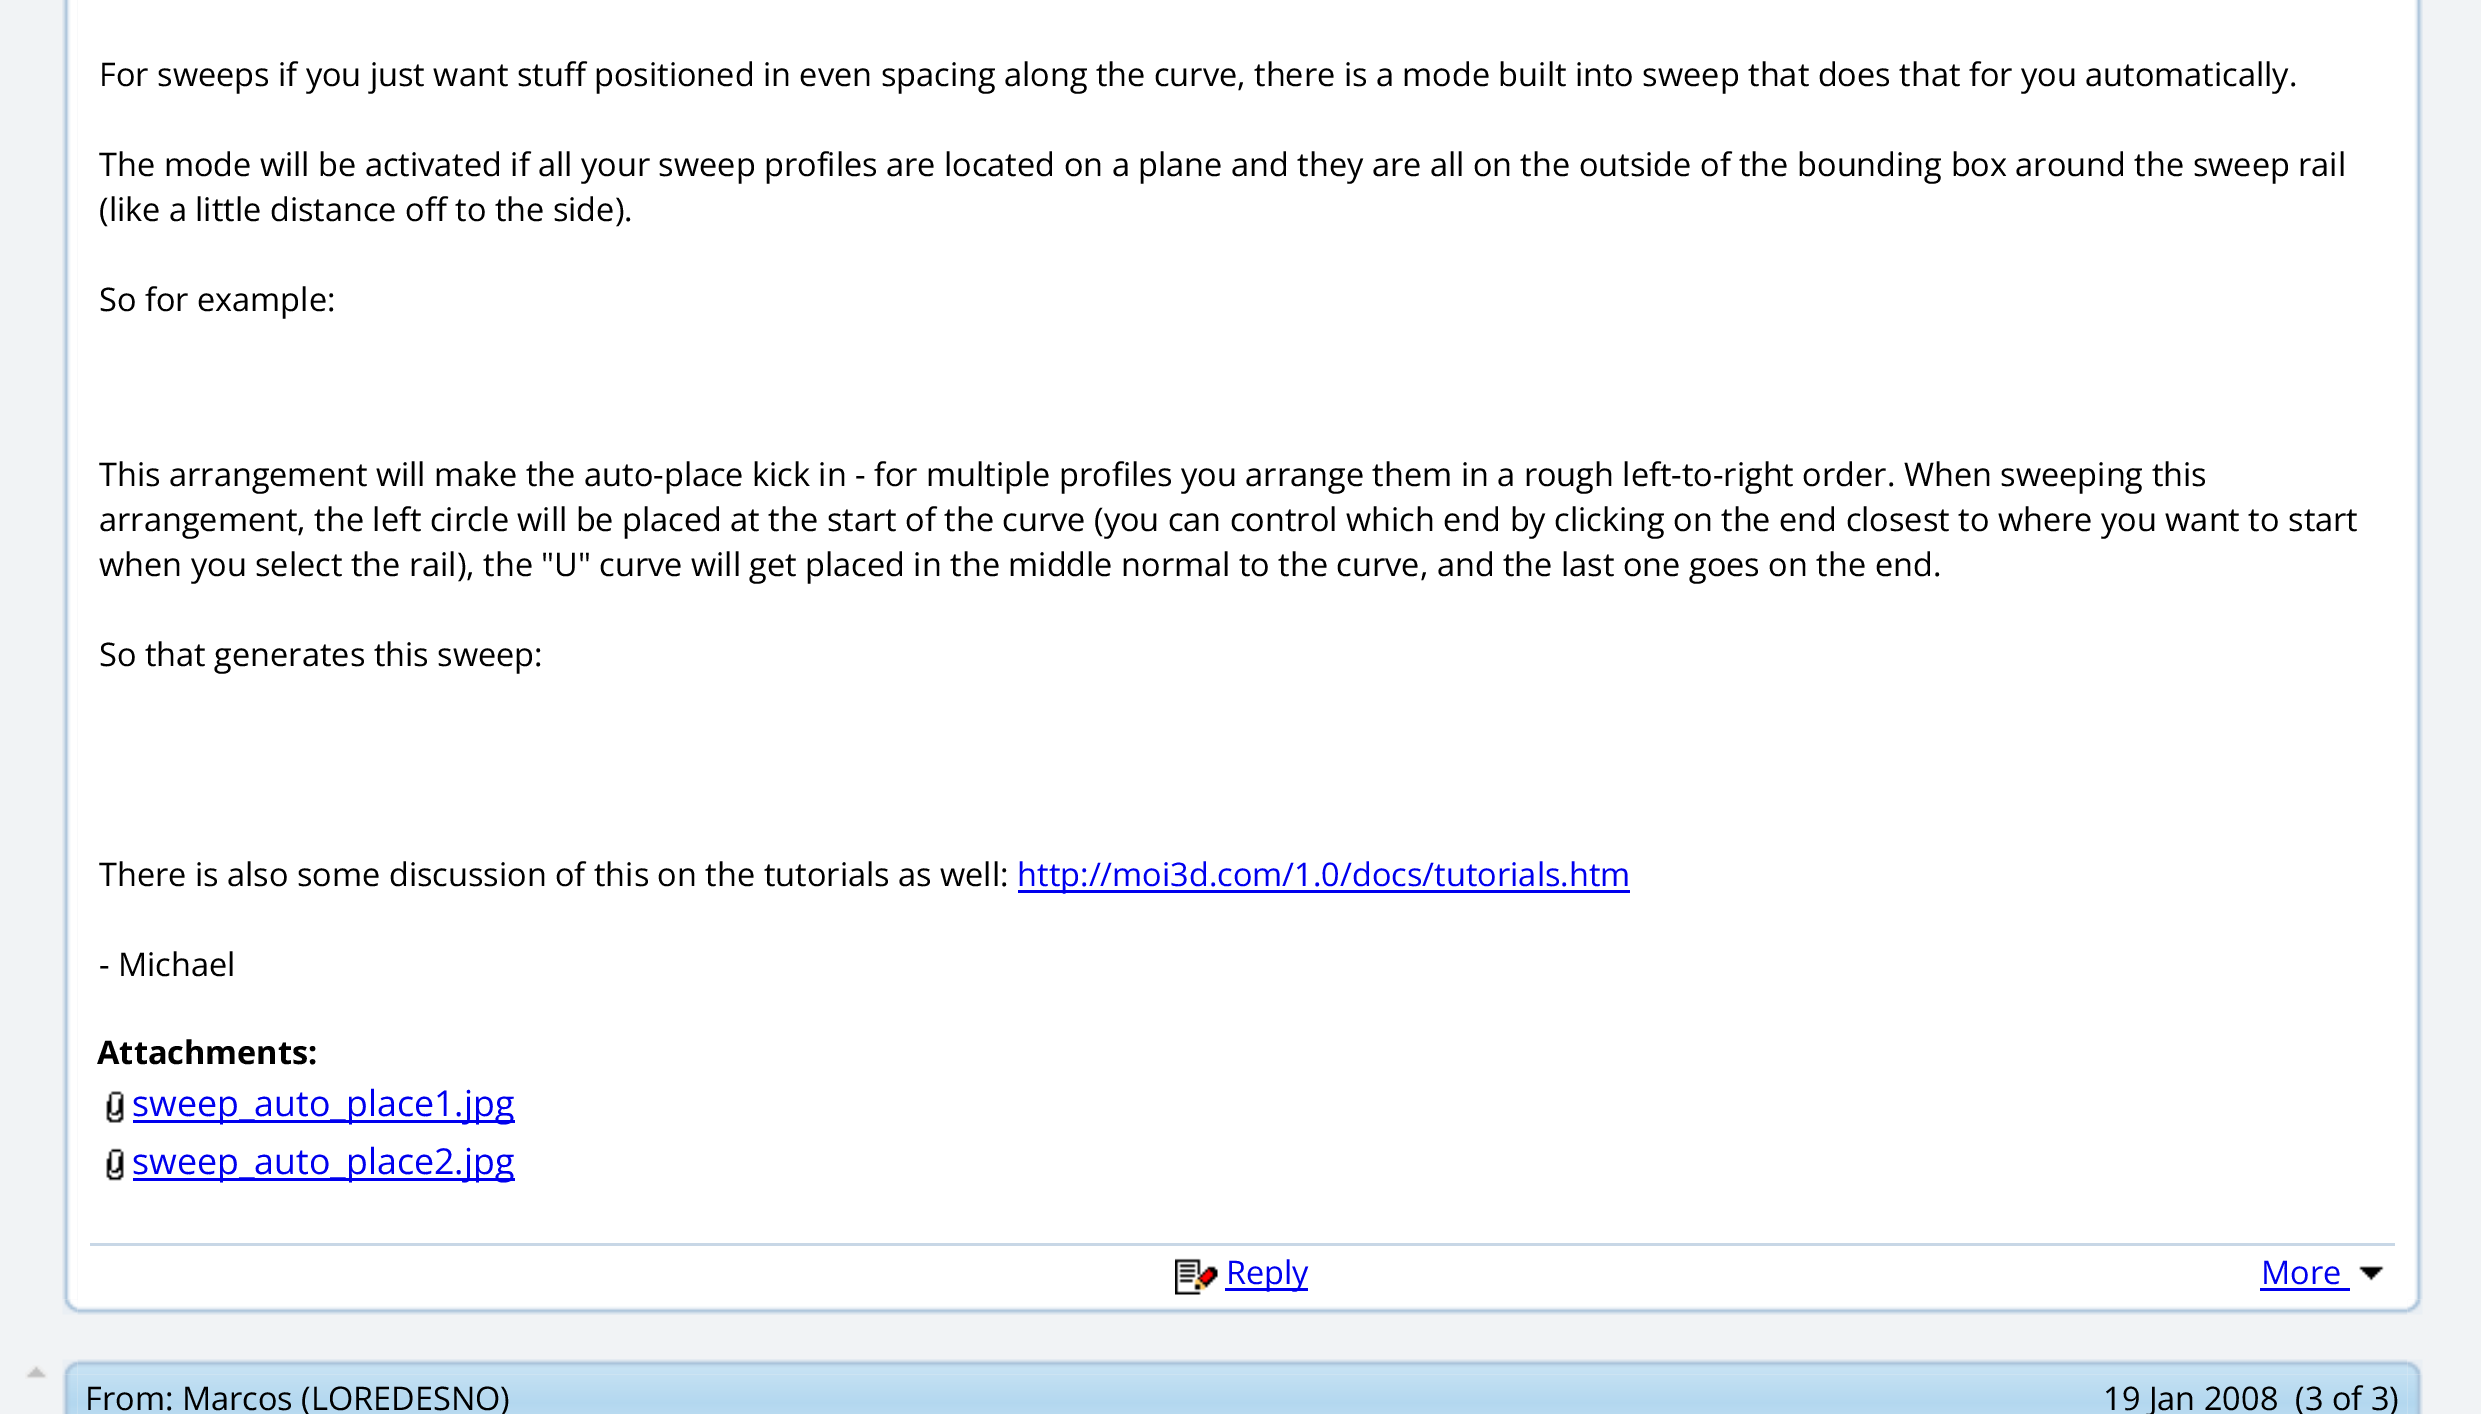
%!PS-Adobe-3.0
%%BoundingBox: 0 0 2481 1414
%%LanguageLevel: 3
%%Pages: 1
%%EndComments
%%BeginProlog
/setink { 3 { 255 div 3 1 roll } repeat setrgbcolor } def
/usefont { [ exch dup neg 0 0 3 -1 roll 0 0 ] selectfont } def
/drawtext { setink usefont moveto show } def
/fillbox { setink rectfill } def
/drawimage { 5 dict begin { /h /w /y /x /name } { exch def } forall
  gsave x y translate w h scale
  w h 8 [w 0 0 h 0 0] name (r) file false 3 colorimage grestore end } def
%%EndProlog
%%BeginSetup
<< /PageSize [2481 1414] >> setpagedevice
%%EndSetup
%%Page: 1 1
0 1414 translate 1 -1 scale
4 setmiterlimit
0 0 2481 1414 241 243 245 fillbox
(assets/img1.rgb) 62 0 16 1300 drawimage
78 0 2330 1300 255 255 255 fillbox
(For sweeps if you just want stuff positioned in even spacing along the curve, there is a mode built into sweep that does that for you automatically.) 99 86 /OpenSans-Regular 32.5 0 0 0 drawtext
(The mode will be activated if all your sweep profiles are located on a plane and they are all on the outside of the bounding box around the sweep rail) 99 176 /OpenSans-Regular 32.5 0 0 0 drawtext
(\(like a little distance off to the side\).) 99 221 /OpenSans-Regular 32.5 0 0 0 drawtext
(So for example:) 99 311 /OpenSans-Regular 32.5 0 0 0 drawtext
(This arrangement will make the auto-place kick in - for multiple profiles you arrange them in a rough left-to-right order. When sweeping this) 99 486 /OpenSans-Regular 32.5 0 0 0 drawtext
(arrangement, the left circle will be placed at the start of the curve \(you can control which end by clicking on the end closest to where you want to start) 99 531 /OpenSans-Regular 32.5 0 0 0 drawtext
(when you select the rail\), the "U" curve will get placed in the middle normal to the curve, and the last one goes on the end.) 99 576 /OpenSans-Regular 32.5 0 0 0 drawtext
(So that generates this sweep:) 99 666 /OpenSans-Regular 32.5 0 0 0 drawtext
(There is also some discussion of this on the tutorials as well:) 99 886 /OpenSans-Regular 32.5 0 0 0 drawtext
1018 890 612 3 0 0 238 fillbox
(http://moi3d.com/1.0/docs/tutorials.htm) 1017 886 /OpenSans-Regular 32.5 0 0 238 drawtext
(- Michael) 99 976 /OpenSans-Regular 32.5 0 0 0 drawtext
(Attachments:) 97 1064 /OpenSans-Bold 32.5 0 0 0 drawtext
(assets/img2.rgb) 106 1091 18 32 drawimage
133 1120 382 3 0 0 238 fillbox
(sweep_auto_place1.jpg) 132 1116 /OpenSans-Regular 35.75 0 0 238 drawtext
(assets/img3.rgb) 106 1148 18 33 drawimage
133 1178 382 3 0 0 238 fillbox
(sweep_auto_place2.jpg) 132 1174 /OpenSans-Regular 35.75 0 0 238 drawtext
90 1243 2305 3 200 215 230 fillbox
(assets/img4.rgb) 1175 1258 43 37 drawimage
1225 1288 83 3 0 0 238 fillbox
(Reply) 1226 1284 /OpenSans-Regular 32.5 0 0 238 drawtext
(More) 2261 1284 /OpenSans-Regular 32.5 0 0 238 drawtext
2260 1288 90 3 0 0 238 fillbox
(assets/img5.rgb) 2359 1266 25 15 drawimage
(assets/img6.rgb) 2408 0 15 1300 drawimage
(assets/img7.rgb) 62 1299 16 16 drawimage
(assets/img8.rgb) 77 1300 2331 15 drawimage
(assets/img9.rgb) 2407 1299 16 16 drawimage
(assets/img10.rgb) 25 1365 23 14 drawimage
(assets/img11.rgb) 62 1359 16 16 drawimage
(assets/img12.rgb) 77 1359 2331 16 drawimage
(assets/img13.rgb) 2407 1359 16 16 drawimage
(assets/img15.rgb) 77 1374 2331 40 drawimage
(assets/img14.rgb) 62 1374 16 40 drawimage
(From: Marcos \(LOREDESNO\)) 85 1410 /OpenSans-Regular 32.5 0 0 0 drawtext
(19 Jan 2008  \(3 of 3\)) 2103 1410 /OpenSans-Regular 32.5 0 0 0 drawtext
(assets/img16.rgb) 2407 1374 16 40 drawimage
showpage
%%EOF
